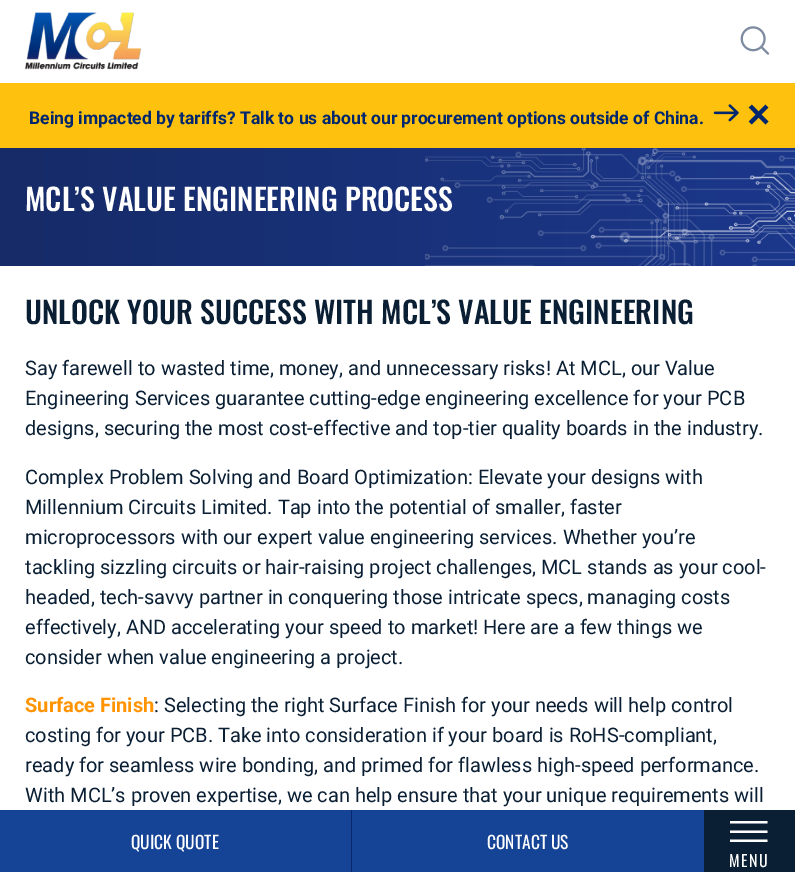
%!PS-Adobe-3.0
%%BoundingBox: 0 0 795 872
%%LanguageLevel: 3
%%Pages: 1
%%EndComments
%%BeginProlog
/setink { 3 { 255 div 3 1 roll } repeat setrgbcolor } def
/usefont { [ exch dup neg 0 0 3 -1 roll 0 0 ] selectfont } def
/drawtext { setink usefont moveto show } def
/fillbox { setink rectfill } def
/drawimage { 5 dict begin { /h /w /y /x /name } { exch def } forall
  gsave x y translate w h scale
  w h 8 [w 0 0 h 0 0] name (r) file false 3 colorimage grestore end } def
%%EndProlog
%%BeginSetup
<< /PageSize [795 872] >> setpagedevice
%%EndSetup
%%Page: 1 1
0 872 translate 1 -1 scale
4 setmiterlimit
0 0 795 872 255 255 255 fillbox
0 83 795 65 254 194 14 fillbox
(Being impacted by tariffs? Talk to us about our procurement options outside of China.) 29 124 /Roboto-Bold 17.5 0 39 110 drawtext
(assets/img1.rgb) 713 104 26 18 drawimage
(×) 747 129 /Roboto-Medium 44 0 39 110 drawtext
(assets/img2.rgb) 25 12 117 58 drawimage
(assets/img3.rgb) 740 26 30 29 drawimage
0 810 704 62 21 67 150 fillbox
351 810 1 62 10 38 111 fillbox
(QUICK QUOTE) 131 849 /Oswald-Regular 17.5 255 255 255 drawtext
(CONTACT US) 487 849 /Oswald-Regular 17.5 255 255 255 drawtext
704 810 91 62 10 31 52 fillbox
255 255 255 setink
730 821 moveto 767.5 821 lineto 767.5 823.5 lineto 730 823.5 lineto closepath 730 830.5 moveto 767.5 830.5 lineto 767.5 833 lineto 730 833 lineto closepath 730 839.5 moveto 767.5 839.5 lineto 767.5 842 lineto 730 842 lineto closepath fill
/Oswald-Regular 16 usefont
729 867 moveto 1.5 0 (MENU) ashow
gsave 0 148 moveto 795 148 lineto 795 266 lineto 0 266 lineto closepath clip newpath
<< /ShadingType 2 /ColorSpace /DeviceRGB /Coords [0 207 795 207] /Extend [true true] /Function << /FunctionType 2 /Domain [0 1] /C0 [0.086 0.169 0.404] /C1 [0.106 0.216 0.545] /N 1 >> >> shfill grestore
(assets/img4.rgb) 425 148 370 118 drawimage
(MCL’S VALUE ENGINEERING PROCESS) 25 211 /Oswald-Medium 30 255 255 255 drawtext
(UNLOCK YOUR SUCCESS WITH MCL’S VALUE ENGINEERING) 25 324 /Oswald-Medium 30 10 31 52 drawtext
(Say farewell to wasted time, money, and unnecessary risks! At MCL, our Value) 25 375 /Roboto-Regular 20 10 31 52 drawtext
(Engineering Services guarantee cutting-edge engineering excellence for your PCB) 25 405 /Roboto-Regular 20 10 31 52 drawtext
(designs, securing the most cost-effective and top-tier quality boards in the industry.) 25 435 /Roboto-Regular 20 10 31 52 drawtext
(Complex Problem Solving and Board Optimization: Elevate your designs with) 25 484 /Roboto-Regular 20 10 31 52 drawtext
(Millennium Circuits Limited. Tap into the potential of smaller, faster) 25 514 /Roboto-Regular 20 10 31 52 drawtext
(microprocessors with our expert value engineering services. Whether you’re) 25 544 /Roboto-Regular 20 10 31 52 drawtext
(tackling sizzling circuits or hair-raising project challenges, MCL stands as your cool-) 25 574 /Roboto-Regular 20 10 31 52 drawtext
(headed, tech-savvy partner in conquering those intricate specs, managing costs) 25 604 /Roboto-Regular 20 10 31 52 drawtext
(effectively, AND accelerating your speed to market! Here are a few things we) 25 634 /Roboto-Regular 20 10 31 52 drawtext
(consider when value engineering a project.) 25 664 /Roboto-Regular 20 10 31 52 drawtext
(Surface Finish) 25 712 /Roboto-Bold 20 255 147 0 drawtext
(: Selecting the right Surface Finish for your needs will help control) 154 712 /Roboto-Regular 20 10 31 52 drawtext
(costing for your PCB. Take into consideration if your board is RoHS-compliant,) 25 742 /Roboto-Regular 20 10 31 52 drawtext
(ready for seamless wire bonding, and primed for flawless high-speed performance.) 25 772 /Roboto-Regular 20 10 31 52 drawtext
(With MCL’s proven expertise, we can help ensure that your unique requirements will) 25 802 /Roboto-Regular 20 10 31 52 drawtext
showpage
%%EOF
